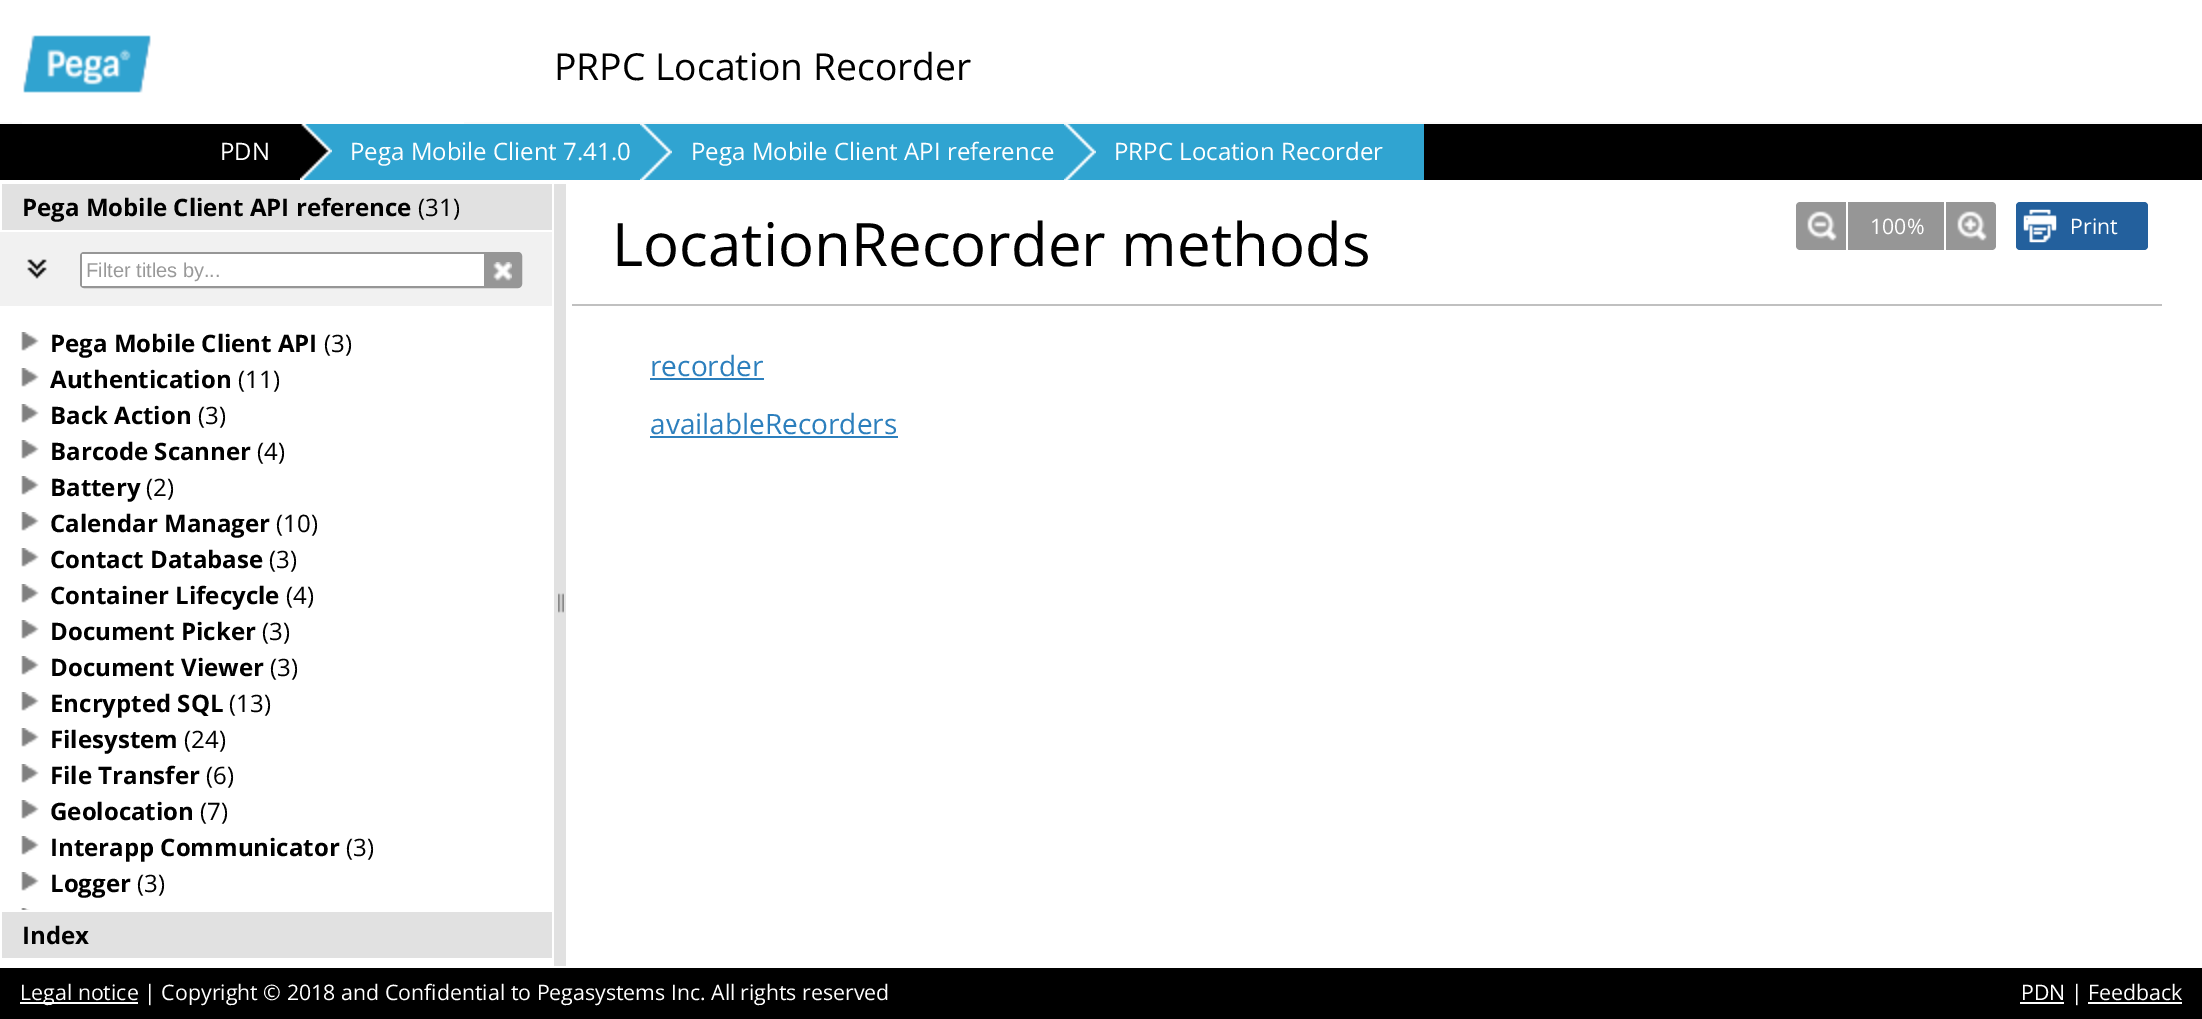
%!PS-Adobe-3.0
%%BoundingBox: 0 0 2202 1019
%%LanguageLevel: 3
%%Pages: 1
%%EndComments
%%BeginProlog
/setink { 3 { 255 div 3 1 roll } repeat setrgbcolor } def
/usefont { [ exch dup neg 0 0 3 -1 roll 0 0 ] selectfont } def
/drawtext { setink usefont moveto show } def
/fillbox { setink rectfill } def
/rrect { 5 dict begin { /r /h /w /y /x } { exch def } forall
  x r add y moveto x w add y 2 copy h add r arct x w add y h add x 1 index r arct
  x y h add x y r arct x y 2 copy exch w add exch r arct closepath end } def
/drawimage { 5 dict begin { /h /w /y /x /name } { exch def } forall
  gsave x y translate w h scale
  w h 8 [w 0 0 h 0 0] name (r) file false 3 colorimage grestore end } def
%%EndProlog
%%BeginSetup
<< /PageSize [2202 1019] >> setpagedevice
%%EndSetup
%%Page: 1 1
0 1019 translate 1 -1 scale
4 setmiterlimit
0 0 2202 1019 255 255 255 fillbox
0 122 2202 2 250 250 250 fillbox
(assets/img1.rgb) 22 35 442 89 drawimage
(PRPC Location Recorder) 554 80 /OpenSans-Regular 37.25 0 0 0 drawtext
0 124 2202 56 0 0 0 fillbox
(PDN) 220 160 /OpenSans-Regular 24 255 255 255 drawtext
303 124 1121 56 48 164 209 fillbox
(assets/img2.rgb) 300 124 32 56 drawimage
(Pega Mobile Client 7.41.0) 350 160 /OpenSans-Regular 24 255 255 255 drawtext
(assets/img3.rgb) 640 124 32 56 drawimage
(Pega Mobile Client API reference) 691 160 /OpenSans-Regular 24 255 255 255 drawtext
(assets/img3.rgb) 1064 124 32 56 drawimage
(PRPC Location Recorder) 1114 160 /OpenSans-Regular 24 255 255 255 drawtext
2 184 550 46 225 225 225 fillbox
(Pega Mobile Client API reference) 22 216 /OpenSans-Bold 24 0 0 0 drawtext
(\(31\)) 418 216 /OpenSans-Regular 24 0 0 0 drawtext
0 232 552 74 241 241 241 fillbox
(assets/img4.rgb) 27 259 20 20 drawimage
150 150 150 setink
2 setlinewidth
81 253 440 34 3 rrect stroke
82 254 402 32 255 255 255 fillbox
(Filter titles by...) 86 277 /LiberationSans-Regular 20 153 153 153 drawtext
484 254 36 32 150 150 150 fillbox
(assets/img5.rgb) 493 262 19 19 drawimage
(assets/img6.rgb) 21 332 18 19 drawimage
(Pega Mobile Client API) 50 352 /OpenSans-Bold 24 0 0 0 drawtext
(\(3\)) 324 352 /OpenSans-Regular 24 0 0 0 drawtext
(assets/img6.rgb) 21 368 18 19 drawimage
(Authentication) 50 388 /OpenSans-Bold 24 0 0 0 drawtext
(\(11\)) 238 388 /OpenSans-Regular 24 0 0 0 drawtext
(assets/img6.rgb) 21 404 18 19 drawimage
(Back Action) 50 424 /OpenSans-Bold 24 0 0 0 drawtext
(\(3\)) 198 424 /OpenSans-Regular 24 0 0 0 drawtext
(assets/img6.rgb) 21 440 18 19 drawimage
(Barcode Scanner) 50 460 /OpenSans-Bold 24 0 0 0 drawtext
(\(4\)) 257 460 /OpenSans-Regular 24 0 0 0 drawtext
(assets/img6.rgb) 21 476 18 19 drawimage
(Battery) 50 496 /OpenSans-Bold 24 0 0 0 drawtext
(\(2\)) 146 496 /OpenSans-Regular 24 0 0 0 drawtext
(assets/img6.rgb) 21 512 18 19 drawimage
(Calendar Manager) 50 532 /OpenSans-Bold 24 0 0 0 drawtext
(\(10\)) 276 532 /OpenSans-Regular 24 0 0 0 drawtext
(assets/img6.rgb) 21 548 18 19 drawimage
(Contact Database) 50 568 /OpenSans-Bold 24 0 0 0 drawtext
(\(3\)) 269 568 /OpenSans-Regular 24 0 0 0 drawtext
(assets/img6.rgb) 21 584 18 19 drawimage
(Container Lifecycle) 50 604 /OpenSans-Bold 24 0 0 0 drawtext
(\(4\)) 286 604 /OpenSans-Regular 24 0 0 0 drawtext
(assets/img6.rgb) 21 620 18 19 drawimage
(Document Picker) 50 640 /OpenSans-Bold 24 0 0 0 drawtext
(\(3\)) 262 640 /OpenSans-Regular 24 0 0 0 drawtext
(assets/img6.rgb) 21 656 18 19 drawimage
(Document Viewer) 50 676 /OpenSans-Bold 24 0 0 0 drawtext
(\(3\)) 270 676 /OpenSans-Regular 24 0 0 0 drawtext
(assets/img6.rgb) 21 692 18 19 drawimage
(Encrypted SQL) 50 712 /OpenSans-Bold 24 0 0 0 drawtext
(\(13\)) 229 712 /OpenSans-Regular 24 0 0 0 drawtext
(assets/img6.rgb) 21 728 18 19 drawimage
(Filesystem) 50 748 /OpenSans-Bold 24 0 0 0 drawtext
(\(24\)) 184 748 /OpenSans-Regular 24 0 0 0 drawtext
(assets/img6.rgb) 21 764 18 19 drawimage
(File Transfer) 50 784 /OpenSans-Bold 24 0 0 0 drawtext
(\(6\)) 206 784 /OpenSans-Regular 24 0 0 0 drawtext
(assets/img6.rgb) 21 800 18 19 drawimage
(Geolocation) 50 820 /OpenSans-Bold 24 0 0 0 drawtext
(\(7\)) 200 820 /OpenSans-Regular 24 0 0 0 drawtext
(assets/img6.rgb) 21 836 18 19 drawimage
(Interapp Communicator) 50 856 /OpenSans-Bold 24 0 0 0 drawtext
(\(3\)) 346 856 /OpenSans-Regular 24 0 0 0 drawtext
(assets/img6.rgb) 21 872 18 19 drawimage
(Logger) 50 892 /OpenSans-Bold 24 0 0 0 drawtext
(\(3\)) 137 892 /OpenSans-Regular 24 0 0 0 drawtext
(assets/img7.rgb) 21 908 9 2 drawimage
2 912 550 46 225 225 225 fillbox
(Index) 22 944 /OpenSans-Bold 24 0 0 0 drawtext
554 184 12 782 225 225 225 fillbox
(assets/img8.rgb) 558 593 6 20 drawimage
572 304 1590 2 192 192 192 fillbox
(LocationRecorder methods) 612 266 /OpenSans-Regular 60 0 0 0 drawtext
150 150 150 setink
1800 202 moveto 1846 202 lineto 1846 250 lineto 1800 250 lineto 1798 250 1796 248 1796 246 curveto 1796 206 lineto 1796 204 1798 202 1800 202 curveto closepath fill
(assets/img9.rgb) 1807 211 30 30 drawimage
1848 202 96 48 150 150 150 fillbox
(100%) 1870 234 /OpenSans-Regular 21.35 255 255 255 drawtext
150 150 150 setink
1944 202 moveto 1992 202 lineto 1994 202 1996 204 1996 206 curveto 1996 246 lineto 1996 248 1994 250 1992 250 curveto 1944 250 lineto closepath fill
1944 202 2 48 255 255 255 fillbox
(assets/img10.rgb) 1957 211 30 30 drawimage
35 96 157 setink
2016 202 132 48 4 rrect fill
(assets/img11.rgb) 2023 209 34 34 drawimage
(assets/img12.rgb) 2024 210 32 32 drawimage
(Print) 2070 234 /OpenSans-Regular 21.35 255 255 255 drawtext
(recorder) 650 376 /OpenSans-Regular 28 44 127 189 drawtext
650 378 114 2 44 127 189 fillbox
(availableRecorders) 650 434 /OpenSans-Regular 28 44 127 189 drawtext
650 436 248 2 44 127 189 fillbox
0 968 2202 51 0 0 0 fillbox
20 1002 118 2 255 255 255 fillbox
(Legal notice | Copyright © 2018 and Confidential to Pegasystems Inc. All) 20 1000 /OpenSans-Regular 21.35 255 255 255 drawtext
(rights reserved) 740 1000 /OpenSans-Regular 21.35 255 255 255 drawtext
2020 1002 44 2 255 255 255 fillbox
(PDN | Feedback) 2021 1000 /OpenSans-Regular 21.35 255 255 255 drawtext
2088 1002 94 2 255 255 255 fillbox
showpage
%%EOF
